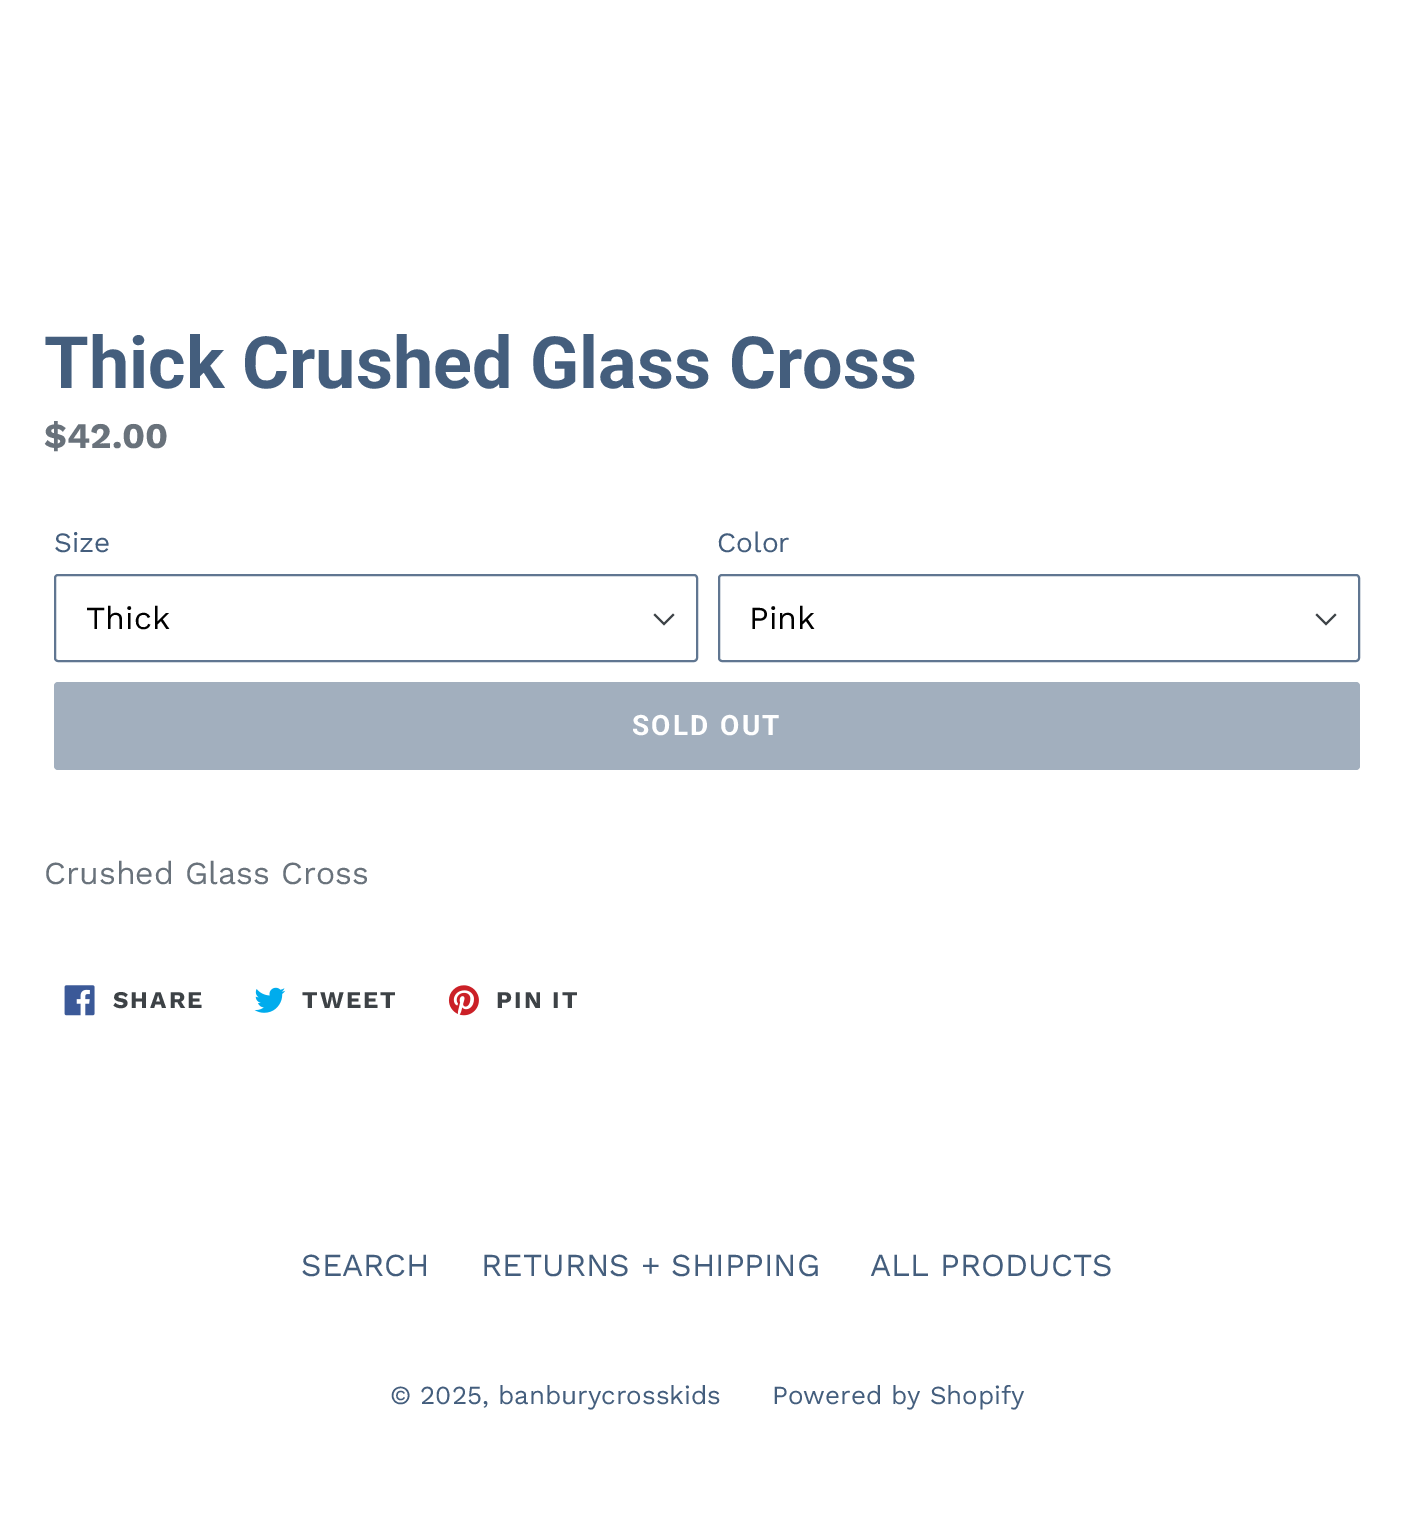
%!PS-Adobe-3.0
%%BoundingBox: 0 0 1414 1528
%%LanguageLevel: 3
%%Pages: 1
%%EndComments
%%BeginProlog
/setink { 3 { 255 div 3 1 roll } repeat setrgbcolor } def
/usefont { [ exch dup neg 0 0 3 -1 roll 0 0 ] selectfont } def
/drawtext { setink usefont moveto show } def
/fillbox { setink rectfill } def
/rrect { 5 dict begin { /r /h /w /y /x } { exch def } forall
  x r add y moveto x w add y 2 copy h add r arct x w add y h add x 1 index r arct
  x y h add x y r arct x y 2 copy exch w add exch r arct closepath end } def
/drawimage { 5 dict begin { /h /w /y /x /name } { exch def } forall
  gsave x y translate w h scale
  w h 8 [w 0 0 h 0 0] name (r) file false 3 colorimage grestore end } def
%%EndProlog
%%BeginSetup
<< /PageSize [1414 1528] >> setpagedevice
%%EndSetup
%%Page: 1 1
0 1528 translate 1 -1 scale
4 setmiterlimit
0 0 1414 1528 255 255 255 fillbox
(Thick Crushed Glass Cross) 44 388 /Roboto-Bold 72 68 94 125 drawtext
($42.00) 44 448 /WorkSans-Bold 36 105 114 123 drawtext
(Size) 54 552 /WorkSans-Regular 28 68 94 125 drawtext
61 66 70 setink
664 625.5 moveto 653.5 615 lineto 655 613.5 lineto 664 622.5 lineto 673 613.5 lineto 674.5 615 lineto closepath fill
96 118 145 setink
2 setlinewidth
55 575 642 86 3 rrect stroke
(Thick) 86 629 /WorkSans-Regular 32 0 0 0 drawtext
(Color) 717 552 /WorkSans-Regular 28 68 94 125 drawtext
61 66 70 setink
1326 625.5 moveto 1315.5 615 lineto 1317 613.5 lineto 1326 622.5 lineto 1335 613.5 lineto 1336.5 615 lineto closepath fill
96 118 145 setink
719 575 640 86 3 rrect stroke
(Pink) 749 629 /WorkSans-Regular 32 0 0 0 drawtext
162 175 190 setink
54 682 1306 88 4 rrect fill
/Roboto-Bold 28 usefont
255 255 255 setink
632 735 moveto 2.25 0 (SOLD OUT) ashow
(Crushed Glass Cross) 44 884 /WorkSans-Regular 32 105 114 123 drawtext
(assets/img1.rgb) 64 985 31 31 drawimage
/WorkSans-Bold 24 usefont
61 66 70 setink
113 1008 moveto 2 0 (SHARE) ashow
(assets/img2.rgb) 254 987 32 26 drawimage
302 1008 moveto 2 0 (TWEET) ashow
(assets/img3.rgb) 448 985 31 31 drawimage
496 1008 moveto 2 0 (PIN IT) ashow
(SEARCH) 301 1276 /WorkSans-Regular 32 68 94 125 drawtext
(RETURNS + SHIPPING) 481 1276 /WorkSans-Regular 32 68 94 125 drawtext
(ALL PRODUCTS) 870 1276 /WorkSans-Regular 32 68 94 125 drawtext
(© 2025, banburycrosskids) 390 1404 /WorkSans-Regular 26 68 94 125 drawtext
(Powered by Shopify) 772 1404 /WorkSans-Regular 26 68 94 125 drawtext
showpage
%%EOF
